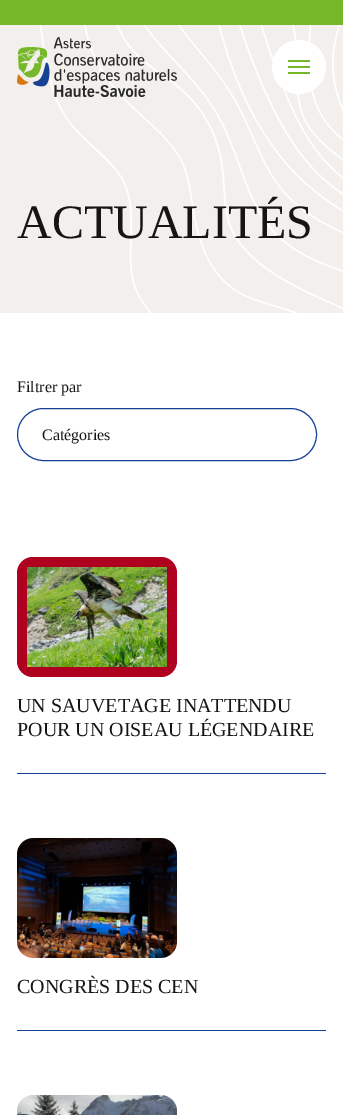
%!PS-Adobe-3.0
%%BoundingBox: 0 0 343 1115
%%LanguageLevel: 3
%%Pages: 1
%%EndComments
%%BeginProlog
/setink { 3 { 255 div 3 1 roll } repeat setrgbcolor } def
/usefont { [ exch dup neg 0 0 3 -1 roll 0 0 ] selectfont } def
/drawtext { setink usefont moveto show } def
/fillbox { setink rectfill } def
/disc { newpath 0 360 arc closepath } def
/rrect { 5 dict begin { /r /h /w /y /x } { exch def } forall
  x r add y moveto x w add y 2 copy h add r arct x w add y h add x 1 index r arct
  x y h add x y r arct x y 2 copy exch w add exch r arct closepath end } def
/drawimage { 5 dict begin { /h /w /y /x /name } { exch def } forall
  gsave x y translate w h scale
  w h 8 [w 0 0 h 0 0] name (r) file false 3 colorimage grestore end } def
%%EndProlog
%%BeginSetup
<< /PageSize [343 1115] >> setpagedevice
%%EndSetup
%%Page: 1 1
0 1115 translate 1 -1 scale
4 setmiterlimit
0 0 343 1115 255 255 255 fillbox
0 0 343 25 118 183 42 fillbox
0 25 343 288 242 239 236 fillbox
(assets/img2.rgb) 39 25 304 288 drawimage
(assets/img1.rgb) 17 37 160 60 drawimage
255 255 255 setink
299 67 27 disc fill
288 60 22 2 118 183 42 fillbox
288 66 22 2 118 183 42 fillbox
288 72 22 2 118 183 42 fillbox
(ACTUALITÉS) 17 238 /LiberationSerif-Regular 48 21 21 21 drawtext
(Filtrer par) 17 392 /LiberationSerif-Regular 16 21 21 21 drawtext
21 65 148 setink
17.5 408.5 299 52 26 rrect stroke
(Catégories) 42 440 /LiberationSerif-Regular 16 21 21 21 drawtext
17 773 309 1 21 65 148 fillbox
176 0 32 setink
17 557 160 120 16 rrect fill
(assets/img3.rgb) 27 567 140 100 drawimage
(UN SAUVETAGE INATTENDU) 17 712 /LiberationSerif-Regular 20 21 21 21 drawtext
(POUR UN OISEAU LÉGENDAIRE) 17 736 /LiberationSerif-Regular 20 21 21 21 drawtext
17 1030 309 1 21 65 148 fillbox
242 239 236 setink
17 838 160 120 16 rrect fill
(assets/img4.rgb) 17 838 160 120 drawimage
(CONGRÈS DES CEN) 17 993 /LiberationSerif-Regular 20 21 21 21 drawtext
242 239 236 setink
17 1095 160 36 16 rrect fill
(assets/img5.rgb) 17 1095 160 20 drawimage
showpage
%%EOF
